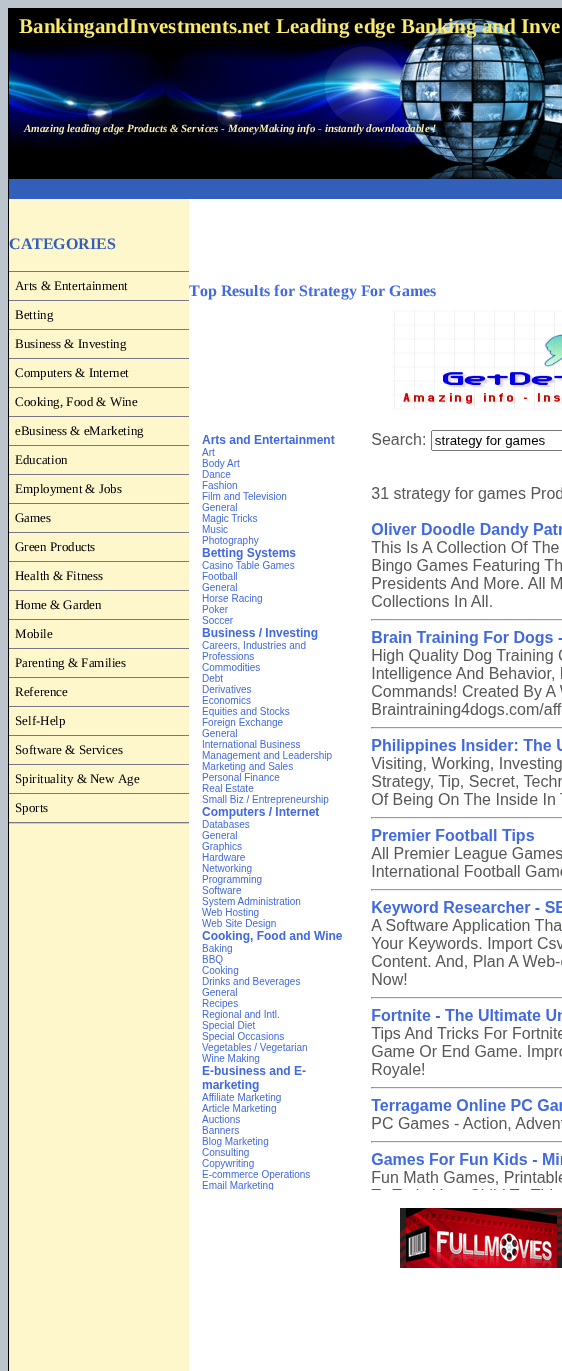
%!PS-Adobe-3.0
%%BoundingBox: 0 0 562 1371
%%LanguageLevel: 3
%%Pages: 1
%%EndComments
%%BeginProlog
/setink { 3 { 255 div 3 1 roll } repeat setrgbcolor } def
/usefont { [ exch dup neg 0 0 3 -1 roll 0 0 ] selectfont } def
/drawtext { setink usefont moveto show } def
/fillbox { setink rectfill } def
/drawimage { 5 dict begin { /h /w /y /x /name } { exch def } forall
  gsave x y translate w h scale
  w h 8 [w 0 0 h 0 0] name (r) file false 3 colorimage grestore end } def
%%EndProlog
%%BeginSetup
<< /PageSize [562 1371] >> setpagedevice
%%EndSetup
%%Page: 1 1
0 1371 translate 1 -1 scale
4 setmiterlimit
0 0 562 1371 188 197 205 fillbox
189 199 373 1172 255 255 255 fillbox
0 0 0 setink
8.5 8.5 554 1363 rectstroke
(assets/img1.rgb) 9 9 553 170 drawimage
(BankingandInvestments.net Leading edge Banking and Inve) 19 33 /LiberationSerif-Bold 21 249 234 111 drawtext
(Amazing leading edge Products & Services - MoneyMaking info - instantly downloadable !) 24 132 /LiberationSerif-BoldItalic 11 251 243 173 drawtext
9 179 553 20 50 95 186 fillbox
9 199 180 1172 255 247 204 fillbox
(CATEGORIES) 9 249 /LiberationSerif-Bold 16 50 95 186 drawtext
9 271 180 1 119 119 136 fillbox
9 823 180 1 204 204 204 fillbox
9 300 180 1 119 119 136 fillbox
(Arts & Entertainment) 15 290 /LiberationSerif-Regular 13 0 0 0 drawtext
9 329 180 1 119 119 136 fillbox
(Betting) 15 319 /LiberationSerif-Regular 13 0 0 0 drawtext
9 358 180 1 119 119 136 fillbox
(Business & Investing) 15 348 /LiberationSerif-Regular 13 0 0 0 drawtext
9 387 180 1 119 119 136 fillbox
(Computers & Internet) 15 377 /LiberationSerif-Regular 13 0 0 0 drawtext
9 416 180 1 119 119 136 fillbox
(Cooking, Food & Wine) 15 406 /LiberationSerif-Regular 13 0 0 0 drawtext
9 445 180 1 119 119 136 fillbox
(eBusiness & eMarketing) 15 435 /LiberationSerif-Regular 13 0 0 0 drawtext
9 474 180 1 119 119 136 fillbox
(Education) 15 464 /LiberationSerif-Regular 13 0 0 0 drawtext
9 503 180 1 119 119 136 fillbox
(Employment & Jobs) 15 493 /LiberationSerif-Regular 13 0 0 0 drawtext
9 532 180 1 119 119 136 fillbox
(Games) 15 522 /LiberationSerif-Regular 13 0 0 0 drawtext
9 561 180 1 119 119 136 fillbox
(Green Products) 15 551 /LiberationSerif-Regular 13 0 0 0 drawtext
9 590 180 1 119 119 136 fillbox
(Health & Fitness) 15 580 /LiberationSerif-Regular 13 0 0 0 drawtext
9 619 180 1 119 119 136 fillbox
(Home & Garden) 15 609 /LiberationSerif-Regular 13 0 0 0 drawtext
9 648 180 1 119 119 136 fillbox
(Mobile) 15 638 /LiberationSerif-Regular 13 0 0 0 drawtext
9 677 180 1 119 119 136 fillbox
(Parenting & Families) 15 667 /LiberationSerif-Regular 13 0 0 0 drawtext
9 706 180 1 119 119 136 fillbox
(Reference) 15 696 /LiberationSerif-Regular 13 0 0 0 drawtext
9 735 180 1 119 119 136 fillbox
(Self-Help) 15 725 /LiberationSerif-Regular 13 0 0 0 drawtext
9 764 180 1 119 119 136 fillbox
(Software & Services) 15 754 /LiberationSerif-Regular 13 0 0 0 drawtext
9 793 180 1 119 119 136 fillbox
(Spirituality & New Age) 15 783 /LiberationSerif-Regular 13 0 0 0 drawtext
9 822 180 1 119 119 136 fillbox
(Sports) 15 812 /LiberationSerif-Regular 13 0 0 0 drawtext
(Top Results for Strategy For Games) 189 296 /LiberationSerif-Bold 16 65 105 225 drawtext
(assets/img2.rgb) 202 310 360 880 drawimage
(assets/img3.rgb) 400 1208 162 60 drawimage
showpage
%%EOF
